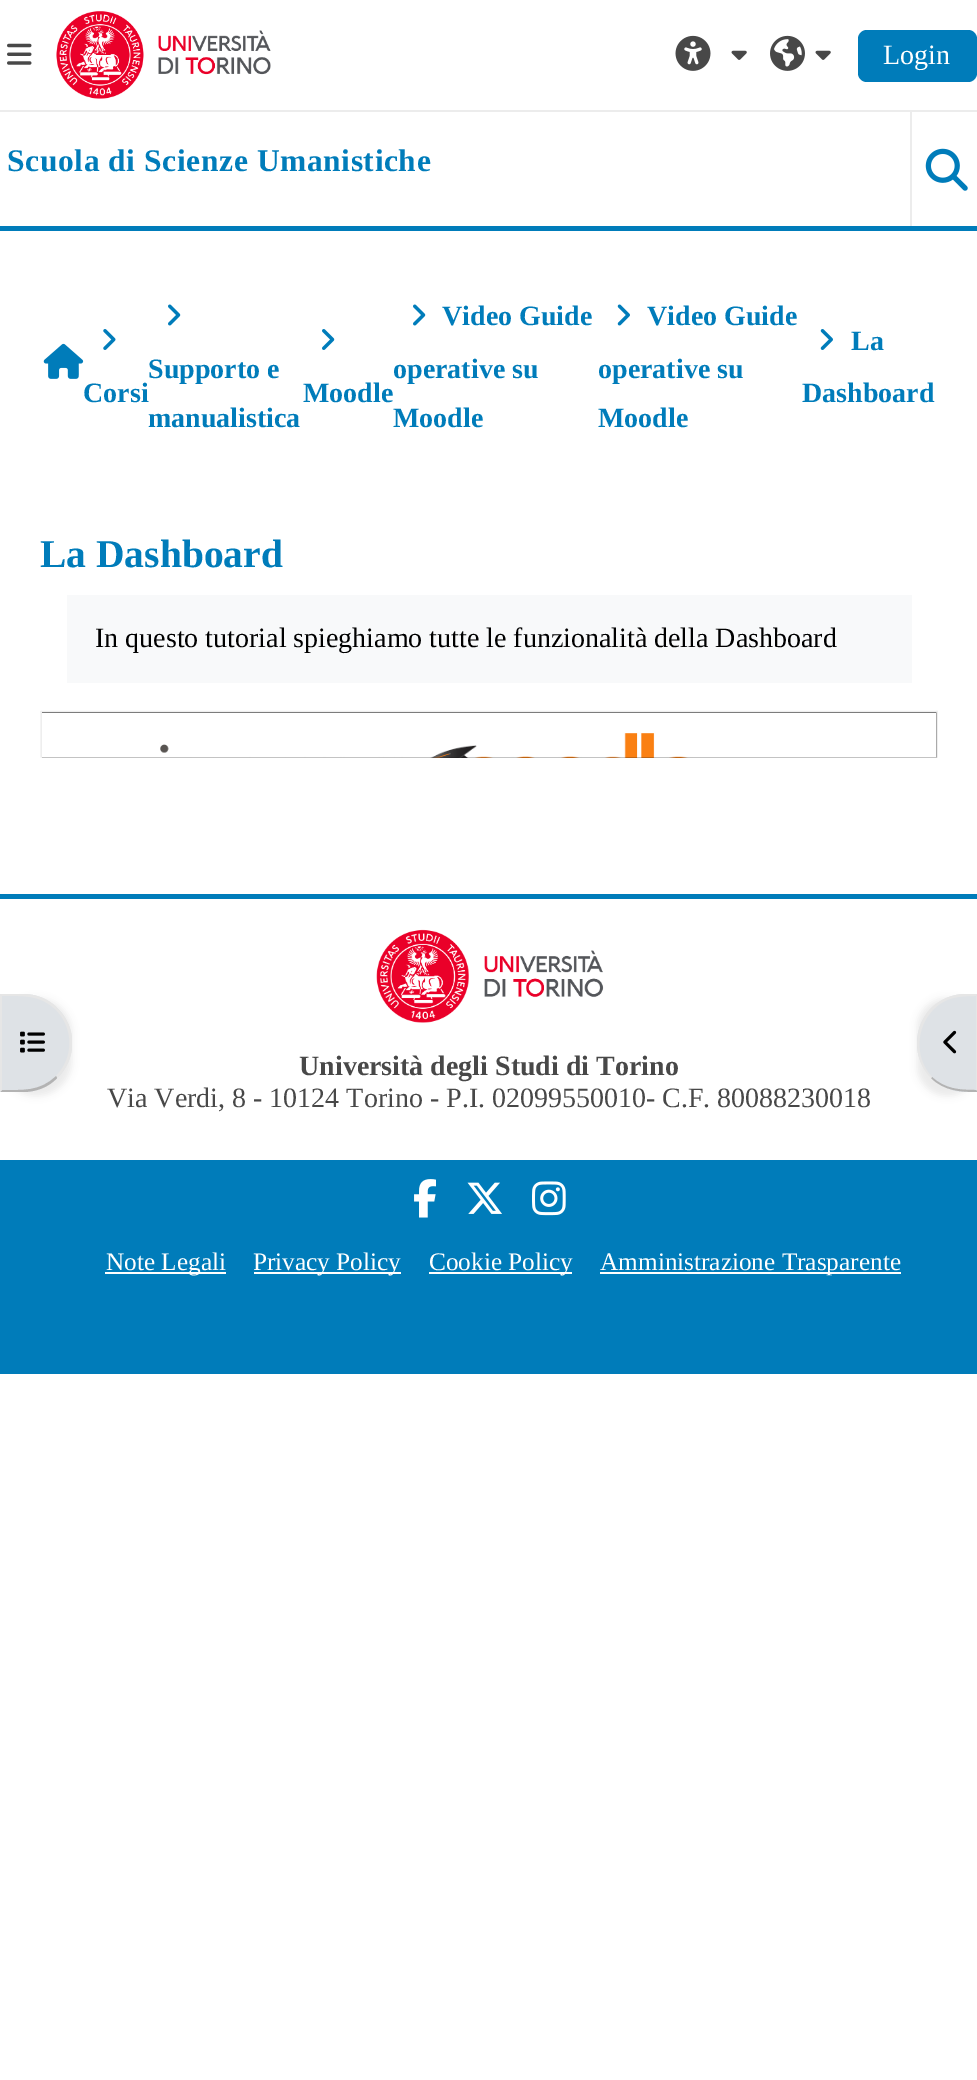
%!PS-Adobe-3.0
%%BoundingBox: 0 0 977 2080
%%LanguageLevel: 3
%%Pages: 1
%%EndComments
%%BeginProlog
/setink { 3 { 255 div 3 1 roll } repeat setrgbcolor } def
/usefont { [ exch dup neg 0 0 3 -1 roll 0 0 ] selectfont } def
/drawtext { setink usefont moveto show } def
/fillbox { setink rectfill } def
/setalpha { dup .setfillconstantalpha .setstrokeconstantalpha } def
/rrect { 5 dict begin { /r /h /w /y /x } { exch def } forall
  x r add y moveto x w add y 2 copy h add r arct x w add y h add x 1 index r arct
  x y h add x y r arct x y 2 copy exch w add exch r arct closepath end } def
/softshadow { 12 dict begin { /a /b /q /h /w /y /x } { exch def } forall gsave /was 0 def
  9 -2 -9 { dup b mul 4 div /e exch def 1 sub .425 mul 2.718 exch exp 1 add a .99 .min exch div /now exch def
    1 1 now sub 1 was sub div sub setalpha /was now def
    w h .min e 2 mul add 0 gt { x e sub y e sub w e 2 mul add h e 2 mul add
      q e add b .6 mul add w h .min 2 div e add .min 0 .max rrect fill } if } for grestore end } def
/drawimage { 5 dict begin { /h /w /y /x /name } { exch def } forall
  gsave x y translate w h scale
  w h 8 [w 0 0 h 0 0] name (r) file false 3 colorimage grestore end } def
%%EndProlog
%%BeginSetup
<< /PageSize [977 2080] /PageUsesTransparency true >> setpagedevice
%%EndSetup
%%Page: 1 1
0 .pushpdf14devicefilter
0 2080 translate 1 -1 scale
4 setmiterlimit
0 0 977 2080 255 255 255 fillbox
0 226 977 5 0 124 186 fillbox
0 110 977 2 236 236 236 fillbox
(assets/img1.rgb) 7 43 25 22 drawimage
(assets/img2.rgb) 56 11 215 88 drawimage
(assets/img3.rgb) 675 35 36 36 drawimage
(assets/img4.rgb) 731 50 16 10 drawimage
(assets/img5.rgb) 770 35 35 36 drawimage
(assets/img4.rgb) 815 50 16 10 drawimage
0 124 186 setink
858 30 119 52 9 rrect fill
(Login) 883 64 /LiberationSerif-Regular 28 255 255 255 drawtext
/LiberationSerif-Bold 31.5 usefont
0 124 186 setink
7 171 moveto 0.6 0 (Scuola di Scienze Umanistiche) ashow
910 112 2 114 236 236 236 fillbox
(assets/img6.rgb) 925 148 43 43 drawimage
(assets/img7.rgb) 43 343 41 36 drawimage
(assets/img8.rgb) 103 329 13 21 drawimage
(Corsi) 83 402 /LiberationSerif-Bold 28 0 124 186 drawtext
(assets/img9.rgb) 168 304 13 22 drawimage
(Supporto e) 148 378 /LiberationSerif-Bold 28 0 124 186 drawtext
(manualistica) 148 427 /LiberationSerif-Bold 28 0 124 186 drawtext
(assets/img10.rgb) 322 329 13 21 drawimage
(Moodle) 303 402 /LiberationSerif-Bold 28 0 124 186 drawtext
(assets/img9.rgb) 413 304 13 22 drawimage
(Video Guide) 442 325 /LiberationSerif-Bold 28 0 124 186 drawtext
(operative su) 393 378 /LiberationSerif-Bold 28 0 124 186 drawtext
(Moodle) 393 427 /LiberationSerif-Bold 28 0 124 186 drawtext
(assets/img11.rgb) 617 304 13 22 drawimage
(Video Guide) 647 325 /LiberationSerif-Bold 28 0 124 186 drawtext
(operative su) 598 378 /LiberationSerif-Bold 28 0 124 186 drawtext
(Moodle) 598 427 /LiberationSerif-Bold 28 0 124 186 drawtext
(assets/img12.rgb) 820 329 13 21 drawimage
(La) 851 350 /LiberationSerif-Bold 28 0 124 186 drawtext
(Dashboard) 802 402 /LiberationSerif-Bold 28 0 124 186 drawtext
(La Dashboard) 40 567 /LiberationSerif-Bold 39.5 0 124 186 drawtext
67 595 845 88 248 249 250 fillbox
(In questo tutorial spieghiamo tutte le funzionalità della Dashboard) 95 647 /LiberationSerif-Regular 28 0 0 0 drawtext
(assets/img13.rgb) 40 710 898 48 drawimage
0 998 72 98 49 3.5 0.07 softshadow
222 226 230 setink
0 994 moveto 23 994 lineto 50 994 72 1016 72 1043 curveto 72 1070 50 1092 23 1092 curveto 0 1092 lineto closepath fill
230 230 230 setink
0 994 moveto 2 996 lineto 22 996 40 994 56 1010 curveto 57 1008 lineto 49 999 36 994 23 994 curveto closepath fill
72 1048 moveto 71 1060 65 1070 57 1078 curveto 56 1076 lineto 74 1058 74 1028 56 1010 curveto 57 1008 lineto 65 1016 71 1026 72 1038 curveto closepath fill
179 179 179 setink
23 1092 moveto 36 1092 49 1087 57 1078 curveto 56 1076 lineto 40 1092 22 1090 2 1090 curveto 0 1092 lineto closepath fill
230 230 230 setink
2 996 moveto 0 994 lineto 0 1092 lineto 2 1090 lineto closepath fill
(assets/img14.rgb) 20 1031 25 22 drawimage
0 894 977 5 0 124 186 fillbox
(assets/img15.rgb) 376 929 228 94 drawimage
(Università degli Studi di Torino) 299 1075 /LiberationSerif-Bold 28 72 72 72 drawtext
(Via Verdi, 8 - 10124 Torino - P.I. 02099550010- C.F. 80088230018) 107 1107 /LiberationSerif-Regular 28 72 72 72 drawtext
0 1160 977 214 0 124 186 fillbox
(assets/img16.rgb) 414 1179 22 39 drawimage
(assets/img17.rgb) 467 1182 35 32 drawimage
(assets/img18.rgb) 532 1181 34 35 drawimage
105 1272 121 2 255 255 255 fillbox
(Note Legali) 106 1270 /LiberationSerif-Regular 25.25 255 255 255 drawtext
254 1272 147 2 255 255 255 fillbox
(Privacy Policy) 253 1270 /LiberationSerif-Regular 25.25 255 255 255 drawtext
429 1272 143 2 255 255 255 fillbox
(Cookie Policy) 429 1270 /LiberationSerif-Regular 25.25 255 255 255 drawtext
600 1272 301 2 255 255 255 fillbox
(Amministrazione Trasparente) 600 1270 /LiberationSerif-Regular 25.25 255 255 255 drawtext
0 0 0 setink
917 998 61 98 49 3.5 0.07 softshadow
222 226 230 setink
966 994 moveto 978 994 lineto 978 1092 lineto 966 1092 lineto 939 1092 917 1070 917 1043 curveto 917 1016 939 994 966 994 curveto closepath fill
230 230 230 setink
966 994 moveto 951 994 940 1000 931 1008 curveto 933 1010 lineto 945 997 959 996 976 996 curveto 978 994 lineto closepath fill
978 994 moveto 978 1092 lineto 976 1090 lineto 976 996 lineto closepath fill
179 179 179 setink
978 1092 moveto 961 1092 944 1091 931 1078 curveto 932 1077 lineto 945 1089 959 1090 976 1090 curveto closepath fill
230 230 230 setink
931 1008 moveto 913 1027 912 1059 931 1078 curveto 932 1077 lineto 914 1058 916 1027 933 1010 curveto closepath fill
(assets/img19.rgb) 943 1030 14 24 drawimage
.poppdf14devicefilter showpage
%%EOF
